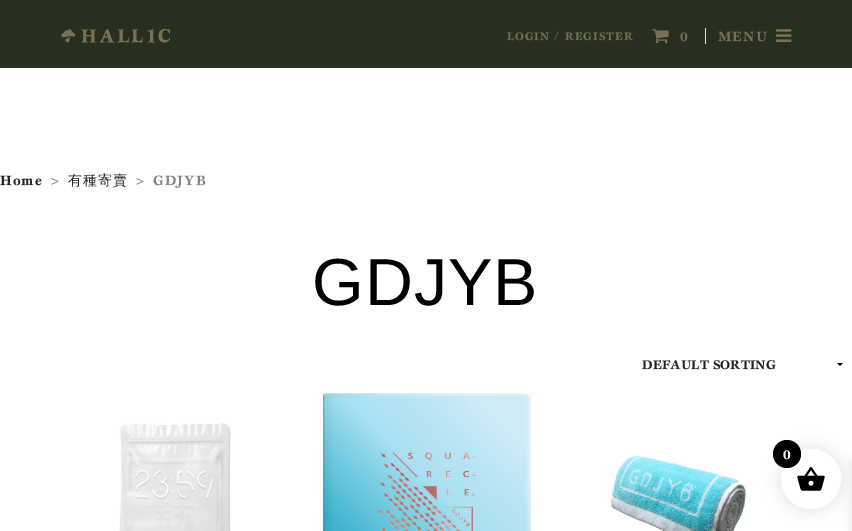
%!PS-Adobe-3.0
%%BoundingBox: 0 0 852 531
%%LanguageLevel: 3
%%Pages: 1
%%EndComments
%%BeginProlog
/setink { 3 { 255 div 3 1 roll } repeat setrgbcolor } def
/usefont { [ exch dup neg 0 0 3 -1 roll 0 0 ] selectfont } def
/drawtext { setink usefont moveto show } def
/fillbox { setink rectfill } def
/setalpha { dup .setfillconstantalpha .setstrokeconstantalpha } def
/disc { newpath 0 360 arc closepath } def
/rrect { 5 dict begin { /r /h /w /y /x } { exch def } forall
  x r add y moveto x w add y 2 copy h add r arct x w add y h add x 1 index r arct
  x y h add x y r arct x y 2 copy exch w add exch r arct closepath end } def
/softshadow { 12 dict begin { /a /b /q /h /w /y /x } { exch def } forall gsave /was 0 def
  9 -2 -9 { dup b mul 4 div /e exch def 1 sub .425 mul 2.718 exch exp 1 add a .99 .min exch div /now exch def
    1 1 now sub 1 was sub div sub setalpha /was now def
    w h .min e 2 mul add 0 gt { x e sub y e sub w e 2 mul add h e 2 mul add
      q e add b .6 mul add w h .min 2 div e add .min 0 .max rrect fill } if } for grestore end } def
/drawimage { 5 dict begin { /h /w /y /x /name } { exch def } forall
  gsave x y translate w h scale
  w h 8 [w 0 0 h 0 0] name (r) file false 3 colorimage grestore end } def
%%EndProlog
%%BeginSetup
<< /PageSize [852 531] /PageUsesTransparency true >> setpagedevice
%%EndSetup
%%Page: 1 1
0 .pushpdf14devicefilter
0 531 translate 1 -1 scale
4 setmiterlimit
0 0 852 531 255 255 255 fillbox
0 0 852 68 39 47 33 fillbox
(assets/img1.rgb) 61 29 109 14 drawimage
/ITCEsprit-Bold 11.25 usefont
121 113 82 setink
507 40 moveto 1 0 (LOGIN / REGISTER) ashow
(assets/img2.rgb) 652 29 17 15 drawimage
/ITCEsprit-Bold 13 usefont
680 41 moveto 1 0 (0) ashow
705 28 1 16 221 221 221 fillbox
/ITCEsprit-Bold 14 usefont
121 113 82 setink
718 41 moveto 1 0 (MENU) ashow
(assets/img3.rgb) 776 29 16 13 drawimage
34 34 34 setink
0 185 moveto 1 0 (Home) ashow
133 133 133 setink
48 185 moveto 1 0 (>) ashow
/WenQuanYiZenHei-Medium 14 usefont
34 34 34 setink
68 185 moveto 1 0 (有種寄賣) ashow
/ITCEsprit-Bold 14 usefont
133 133 133 setink
133 185 moveto 1 0 (> GDJYB) ashow
/LiberationSans-Regular 66.5 usefont
0 0 0 setink
312 305 moveto 1 0 (GDJYB) ashow
843 363 moveto 840 366 lineto 837 363 lineto closepath fill
(DEFAULT SORTING) 642 369 /ITCEsprit-Bold 13 34 34 34 drawtext
(assets/img4.rgb) 119 423 112 108 drawimage
(assets/img5.rgb) 323 393 208 138 drawimage
(assets/img6.rgb) 610 456 136 75 drawimage
0 0 0 setink
779 447 64 64 32 7.5 0.1 softshadow
852 462 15 68 0 5 0.1 softshadow
255 255 255 setink
811 479 30 disc fill
(assets/img7.rgb) 797 467 28 24 drawimage
0 0 0 setink
787 454 14 disc fill
255 255 255 setink
783 459 moveto 1 0 (0) ashow
.poppdf14devicefilter showpage
%%EOF
